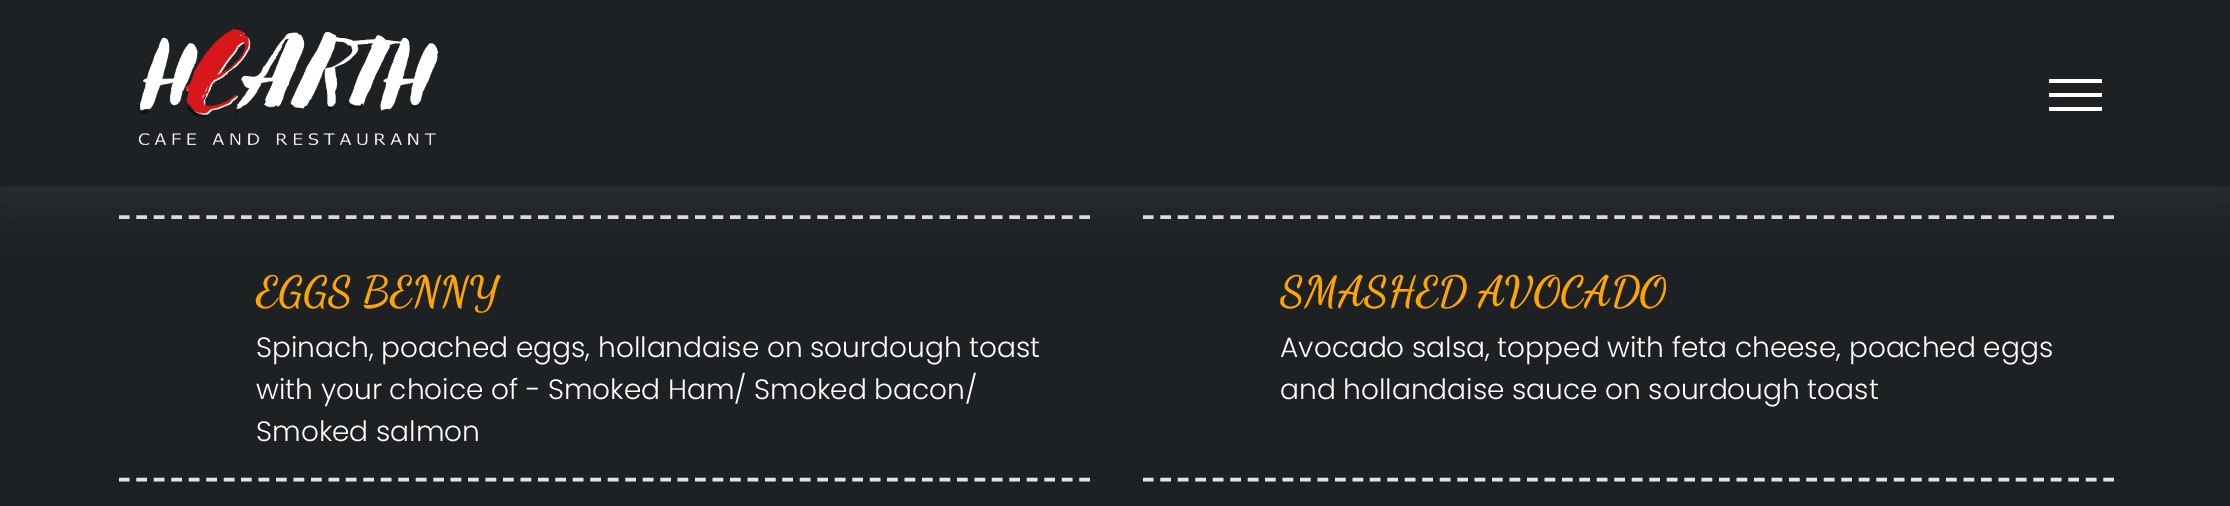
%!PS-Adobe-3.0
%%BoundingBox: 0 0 2230 506
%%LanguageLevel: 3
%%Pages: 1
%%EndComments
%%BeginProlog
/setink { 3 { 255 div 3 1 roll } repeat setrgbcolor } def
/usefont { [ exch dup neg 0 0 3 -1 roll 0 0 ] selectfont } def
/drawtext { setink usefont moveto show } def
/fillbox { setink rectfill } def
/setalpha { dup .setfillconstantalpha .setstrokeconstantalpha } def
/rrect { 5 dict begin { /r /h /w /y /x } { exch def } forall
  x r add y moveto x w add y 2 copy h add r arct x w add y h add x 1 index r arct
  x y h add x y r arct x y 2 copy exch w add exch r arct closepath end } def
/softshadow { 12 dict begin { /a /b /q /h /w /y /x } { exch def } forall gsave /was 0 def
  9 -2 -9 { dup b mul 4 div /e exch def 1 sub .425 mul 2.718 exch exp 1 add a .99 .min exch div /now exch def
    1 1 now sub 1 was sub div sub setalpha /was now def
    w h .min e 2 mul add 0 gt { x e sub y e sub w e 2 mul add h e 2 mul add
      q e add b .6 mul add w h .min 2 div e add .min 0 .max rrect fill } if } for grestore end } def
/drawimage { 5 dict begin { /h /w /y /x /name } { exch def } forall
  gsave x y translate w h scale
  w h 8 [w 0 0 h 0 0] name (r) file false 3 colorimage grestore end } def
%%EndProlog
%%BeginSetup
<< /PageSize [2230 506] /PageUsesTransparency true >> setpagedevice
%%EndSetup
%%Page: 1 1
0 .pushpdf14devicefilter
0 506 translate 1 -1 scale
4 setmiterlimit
0 0 2230 506 30 33 36 fillbox
227 227 227 setink
3.5 setlinewidth
[10.5 6.96] 0 setdash
119 217 moveto 1090 217 lineto stroke
1143 217 moveto 2114 217 lineto stroke
100 100 111 setink
0 12 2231 188 0 25.5 0.2 softshadow
0 0 2230 187 30 33 36 fillbox
(assets/img1.rgb) 138 28 301 118 drawimage
2049 93 53 4 255 255 255 fillbox
2049 79 53 4 255 255 255 fillbox
2049 107 53 4 255 255 255 fillbox
(EGGS BENNY) 256 305 /DancingScript-Bold 42 255 165 0 drawtext
(Spinach, poached eggs, hollandaise on sourdough toast) 256 357 /Poppins-Light 28 255 255 255 drawtext
(with your choice of - Smoked Ham/ Smoked bacon/) 256 399 /Poppins-Light 28 255 255 255 drawtext
(Smoked salmon) 256 441 /Poppins-Light 28 255 255 255 drawtext
227 227 227 setink
119 479.5 moveto 1090 479.5 lineto stroke
(SMASHED AVOCADO) 1280 305 /DancingScript-Bold 42 255 165 0 drawtext
(Avocado salsa, topped with feta cheese, poached eggs) 1280 357 /Poppins-Light 28 255 255 255 drawtext
(and hollandaise sauce on sourdough toast) 1280 399 /Poppins-Light 28 255 255 255 drawtext
227 227 227 setink
1143 479.5 moveto 2114 479.5 lineto stroke
.poppdf14devicefilter showpage
%%EOF
